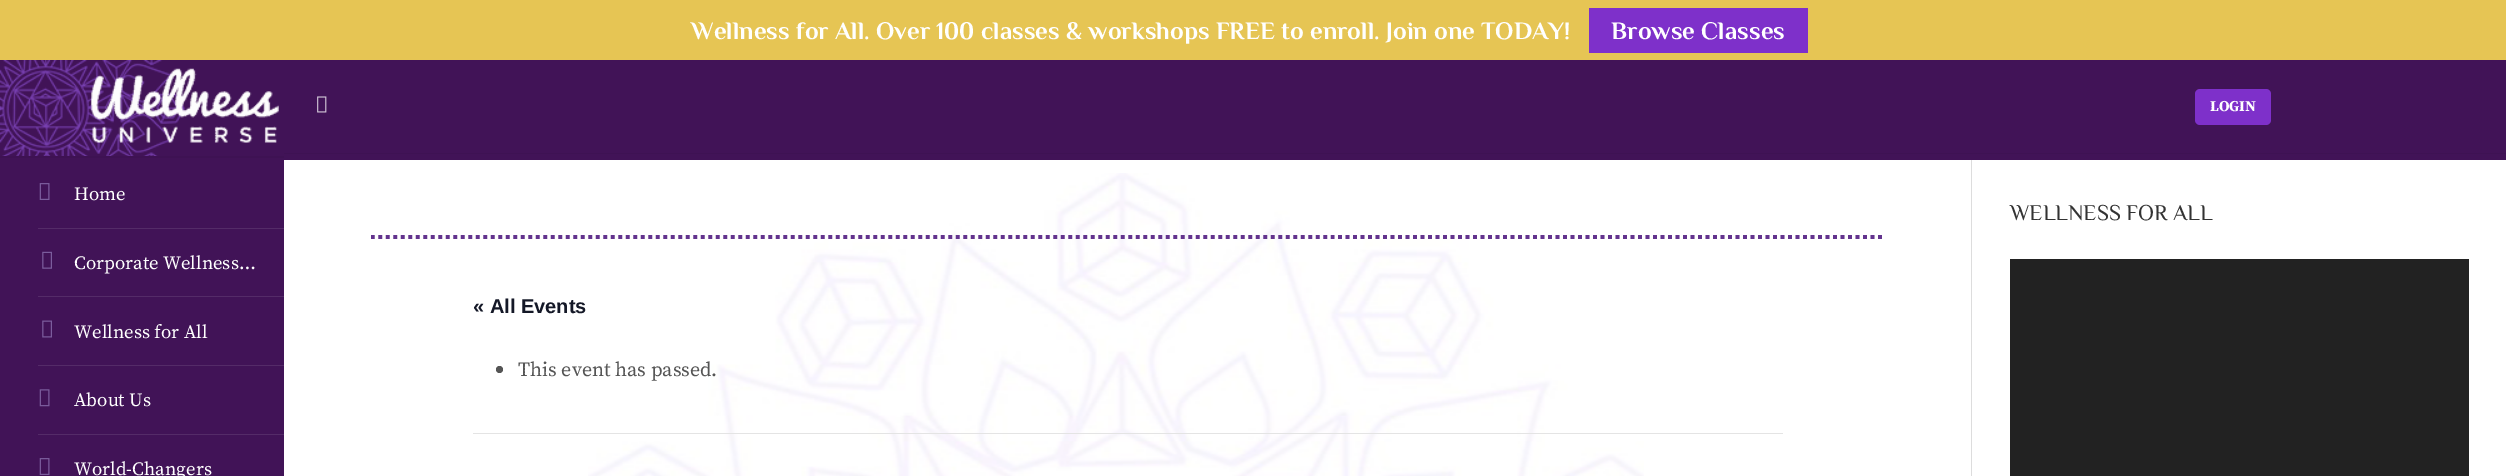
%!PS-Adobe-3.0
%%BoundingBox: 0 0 2506 476
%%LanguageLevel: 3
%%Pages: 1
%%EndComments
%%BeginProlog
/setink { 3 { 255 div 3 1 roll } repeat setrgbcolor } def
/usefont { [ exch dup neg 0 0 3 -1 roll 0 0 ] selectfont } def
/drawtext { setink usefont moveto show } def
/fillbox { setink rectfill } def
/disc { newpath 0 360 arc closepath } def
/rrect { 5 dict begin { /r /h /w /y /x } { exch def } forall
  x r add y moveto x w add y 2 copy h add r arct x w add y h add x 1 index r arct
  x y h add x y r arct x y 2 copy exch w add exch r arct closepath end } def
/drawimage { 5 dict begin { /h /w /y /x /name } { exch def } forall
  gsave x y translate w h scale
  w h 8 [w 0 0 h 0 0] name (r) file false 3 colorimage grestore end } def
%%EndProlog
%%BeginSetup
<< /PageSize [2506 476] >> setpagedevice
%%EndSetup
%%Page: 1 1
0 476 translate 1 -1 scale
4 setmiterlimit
0 0 2506 476 65 19 87 fillbox
0 0 2506 60 230 197 84 fillbox
(Wellness for All. Over 100 classes & workshops FREE to enroll. Join one TODAY!) 691 39 /Philosopher-Bold 25 255 255 255 drawtext
1589 8 219 45 126 48 202 fillbox
(Browse Classes) 1611 39 /Philosopher-Bold 25 255 255 255 drawtext
62 18 83 setink
0 156 moveto 0 158 lineto 284 158 lineto 284 61 lineto 284 156 lineto closepath fill
(assets/img1.rgb) 0 60 186 96 drawimage
(assets/img2.rgb) 91 68 188 75 drawimage
284 153 2222 1 62 18 83 fillbox
(assets/img3.rgb) 317 96 10 17 drawimage
126 48 202 setink
2195 89 76 36 5 rrect fill
(LOGIN) 2210 111 /SourceSerifPro-Bold 15 255 255 255 drawtext
(assets/img4.rgb) 39 183 11 17 drawimage
(Home) 74 200 /SourceSerifPro-Regular 18.75 255 255 255 drawtext
38 228 246 1 84 43 104 fillbox
(assets/img5.rgb) 42 251 10 18 drawimage
(Corporate Wellness…) 74 269 /SourceSerifPro-Regular 18.75 255 255 255 drawtext
38 296 246 1 84 43 104 fillbox
(assets/img6.rgb) 42 320 10 18 drawimage
(Wellness for All) 74 338 /SourceSerifPro-Regular 18.75 255 255 255 drawtext
38 365 246 1 84 43 104 fillbox
(assets/img7.rgb) 39 389 11 18 drawimage
(About Us) 74 406 /SourceSerifPro-Regular 18.75 255 255 255 drawtext
38 434 246 1 84 43 104 fillbox
(assets/img4.rgb) 39 458 11 17 drawimage
(World-Changers) 74 475 /SourceSerifPro-Regular 18.75 255 255 255 drawtext
284 160 2222 316 255 255 255 fillbox
(WELLNESS FOR ALL) 2010 220 /Philosopher-Regular 22.5 51 51 51 drawtext
2010 259 459 217 34 34 34 fillbox
(assets/img8.rgb) 588 173 1056 303 drawimage
1971 160 1 316 221 221 221 fillbox
99 51 142 setink
3.8 setlinewidth
[3.75 3.75] 0 setdash
371 237 moveto 1884 237 lineto stroke
(« All Events) 473 313 /LiberationSans-Bold 20 20 24 39 drawtext
473 433 1310 1 228 228 228 fillbox
85 85 85 setink
499.5 369.5 3.5 disc fill
(This event has passed.) 518 376 /SourceSerifPro-Regular 20 85 85 85 drawtext
showpage
%%EOF
